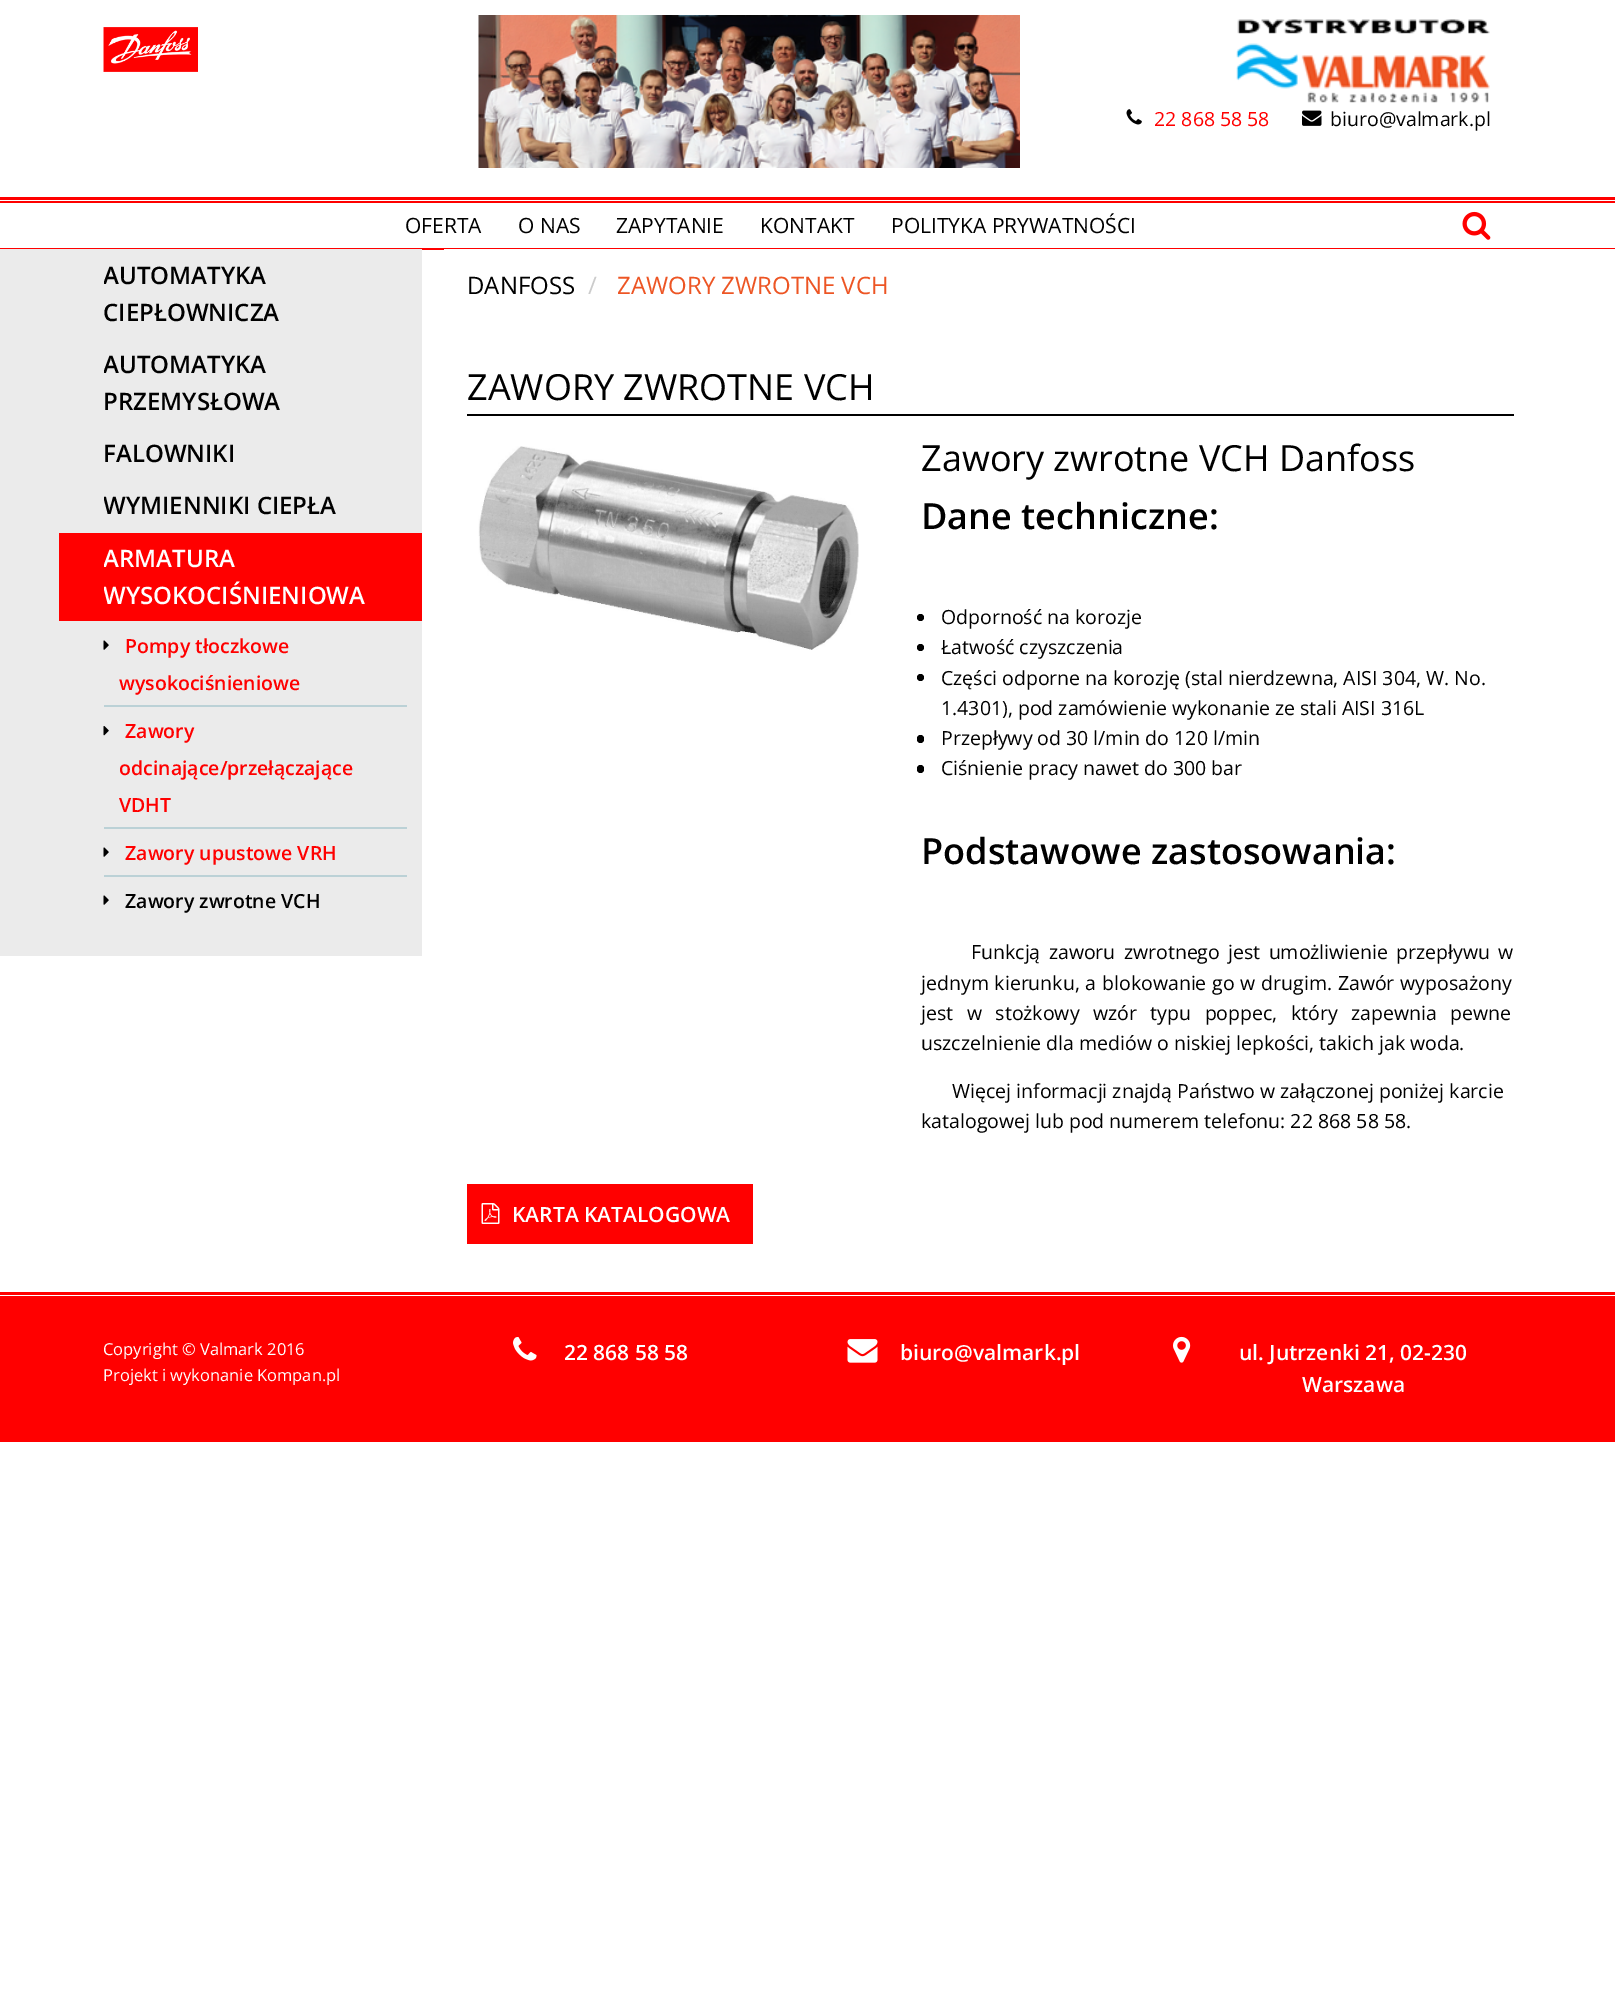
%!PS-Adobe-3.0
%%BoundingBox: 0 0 1615 1990
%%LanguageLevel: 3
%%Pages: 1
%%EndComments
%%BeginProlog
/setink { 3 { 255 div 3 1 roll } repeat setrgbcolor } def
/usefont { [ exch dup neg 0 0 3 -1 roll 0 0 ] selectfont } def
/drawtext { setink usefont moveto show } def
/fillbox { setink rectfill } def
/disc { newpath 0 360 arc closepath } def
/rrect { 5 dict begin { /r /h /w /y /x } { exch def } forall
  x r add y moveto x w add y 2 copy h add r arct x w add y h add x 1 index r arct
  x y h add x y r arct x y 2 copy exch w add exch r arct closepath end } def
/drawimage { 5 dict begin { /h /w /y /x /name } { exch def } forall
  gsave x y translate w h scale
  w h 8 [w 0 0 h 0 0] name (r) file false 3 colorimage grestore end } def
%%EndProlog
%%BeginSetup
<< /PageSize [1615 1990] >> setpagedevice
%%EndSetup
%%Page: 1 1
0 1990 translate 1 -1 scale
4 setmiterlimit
0 0 1615 1990 255 255 255 fillbox
0 248 1615 2 255 0 0 fillbox
(assets/img1.rgb) 103 27 95 45 drawimage
(assets/img2.rgb) 478 15 542 153 drawimage
(assets/img3.rgb) 1236 19 254 84 drawimage
(assets/img4.rgb) 1126 109 16 16 drawimage
(22 868 58 58) 1154 126 /OpenSans-Regular 19.5 255 0 0 drawtext
(assets/img5.rgb) 1302 110 20 16 drawimage
(biuro@valmark.pl) 1330 126 /OpenSans-Regular 19.5 0 0 0 drawtext
0 197 1615 3 255 0 0 fillbox
0 201 1615 2 255 0 0 fillbox
(OFERTA) 405 233 /OpenSans-Regular 21 0 0 0 drawtext
(O NAS) 518 233 /OpenSans-Regular 21 0 0 0 drawtext
(ZAPYTANIE) 616 233 /OpenSans-Regular 21 0 0 0 drawtext
(KONTAKT) 760 233 /OpenSans-Regular 21 0 0 0 drawtext
(POLITYKA PRYWATNOŚCI) 891 233 /OpenSans-Regular 21 0 0 0 drawtext
(assets/img6.rgb) 1462 211 29 29 drawimage
104 249 318 707 235 235 235 fillbox
(AUTOMATYKA) 103 284 /OpenSans-SemiBold 24 0 0 0 drawtext
(AUTOMATYKA) 103 373 /OpenSans-SemiBold 24 0 0 0 drawtext
(WYMIENNIKI CIEPŁA) 103 514 /OpenSans-SemiBold 24 0 0 0 drawtext
0 249 104 707 235 235 235 fillbox
(CIEPŁOWNICZA) 103 321 /OpenSans-SemiBold 24 0 0 0 drawtext
(PRZEMYSŁOWA) 103 410 /OpenSans-SemiBold 24 0 0 0 drawtext
(FALOWNIKI) 103 462 /OpenSans-SemiBold 24 0 0 0 drawtext
104 533 318 88 255 0 0 fillbox
(ARMATURA) 103 567 /OpenSans-SemiBold 24 255 255 255 drawtext
(WYSOKOCIŚNIENIOWA) 103 604 /OpenSans-SemiBold 24 255 255 255 drawtext
59 533 45 88 255 0 0 fillbox
104 705 303 2 187 209 214 fillbox
(assets/img7.rgb) 103 640 6 10 drawimage
(Pompy tłoczkowe) 125 653 /OpenSans-SemiBold 19.5 255 0 0 drawtext
(wysokociśnieniowe) 119 690 /OpenSans-SemiBold 19.5 255 0 0 drawtext
104 827 303 2 187 209 214 fillbox
(assets/img8.rgb) 103 726 6 10 drawimage
(Zawory) 125 738 /OpenSans-SemiBold 19.5 255 0 0 drawtext
(odcinające/przełączające) 119 775 /OpenSans-SemiBold 19.5 255 0 0 drawtext
(VDHT) 119 812 /OpenSans-SemiBold 19.5 255 0 0 drawtext
104 875 303 2 187 209 214 fillbox
(assets/img7.rgb) 103 847 6 10 drawimage
(Zawory upustowe VRH) 125 860 /OpenSans-SemiBold 19.5 255 0 0 drawtext
(assets/img7.rgb) 103 895 6 10 drawimage
(Zawory zwrotne VCH) 125 908 /OpenSans-SemiBold 19.5 0 0 0 drawtext
444 249 1171 1 255 255 255 fillbox
(DANFOSS) 467 294 /OpenSans-Regular 24 0 0 0 drawtext
(/) 588 294 /OpenSans-Regular 24 204 204 204 drawtext
(ZAWORY ZWROTNE VCH) 617 294 /OpenSans-Regular 24 237 85 36 drawtext
467 414 1047 2 0 0 0 fillbox
(ZAWORY ZWROTNE VCH) 467 400 /OpenSans-Regular 36 0 0 0 drawtext
(assets/img9.rgb) 478 446 381 204 drawimage
(Zawory zwrotne VCH Danfoss) 921 471 /OpenSans-Regular 36 0 0 0 drawtext
(Dane techniczne:) 921 529 /OpenSans-SemiBold 36 0 0 0 drawtext
920.5 617.5 3.5 disc fill
(Odporność na korozje) 941 624 /OpenSans-Regular 19.5 0 0 0 drawtext
920.5 647.5 3.5 disc fill
(Łatwość czyszczenia) 941 654 /OpenSans-Regular 19.5 0 0 0 drawtext
920.5 677.5 3.5 disc fill
(Części odporne na korozję \(stal nierdzewna, AISI 304, W. No.) 941 685 /OpenSans-Regular 19.5 0 0 0 drawtext
(1.4301\), pod zamówienie wykonanie ze stali AISI 316L) 941 715 /OpenSans-Regular 19.5 0 0 0 drawtext
917 735 7 8 3.5 rrect fill
(Przepływy od 30 l/min do 120 l/min) 941 745 /OpenSans-Regular 19.5 0 0 0 drawtext
917 765 7 8 3.5 rrect fill
(Ciśnienie pracy nawet do 300 bar) 941 775 /OpenSans-Regular 19.5 0 0 0 drawtext
(Podstawowe zastosowania:) 921 864 /OpenSans-SemiBold 36 0 0 0 drawtext
/OpenSans-Regular 19.5 usefont
971 959 moveto 3.25 0 32 (Funkcją zaworu zwrotnego jest umożliwienie przepływu w) widthshow
921 990 moveto 0.75 0 32 (jednym kierunku, a blokowanie go w drugim. Zawór wyposażony) widthshow
921 1020 moveto 8.5 0 32 (jest w stożkowy wzór typu poppec, który zapewnia pewne) widthshow
(uszczelnienie dla mediów o niskiej lepkości, takich jak woda.) 921 1050 /OpenSans-Regular 19.5 0 0 0 drawtext
(Więcej informacji znajdą Państwo w załączonej poniżej karcie) 952 1098 /OpenSans-Regular 19.5 0 0 0 drawtext
(katalogowej lub pod numerem telefonu: 22 868 58 58.) 921 1128 /OpenSans-Regular 19.5 0 0 0 drawtext
467 1184 286 60 255 0 0 fillbox
(assets/img10.rgb) 481 1203 19 21 drawimage
(KARTA KATALOGOWA) 512 1222 /OpenSans-SemiBold 21 255 255 255 drawtext
0 1292 1615 3 255 0 0 fillbox
0 1296 1615 146 255 0 0 fillbox
(Copyright © Valmark 2016) 103 1355 /OpenSans-Regular 16.5 255 255 255 drawtext
(Projekt i wykonanie Kompan.pl) 103 1381 /OpenSans-Regular 16.5 255 255 255 drawtext
(assets/img11.rgb) 513 1337 24 24 drawimage
(22 868 58 58) 564 1360 /OpenSans-SemiBold 21 255 255 255 drawtext
(assets/img12.rgb) 847 1339 31 24 drawimage
(biuro@valmark.pl) 900 1360 /OpenSans-SemiBold 21 255 255 255 drawtext
(assets/img13.rgb) 1173 1336 18 27 drawimage
(ul. Jutrzenki 21, 02-230) 1239 1360 /OpenSans-SemiBold 21 255 255 255 drawtext
(Warszawa) 1302 1392 /OpenSans-SemiBold 21 255 255 255 drawtext
showpage
%%EOF
